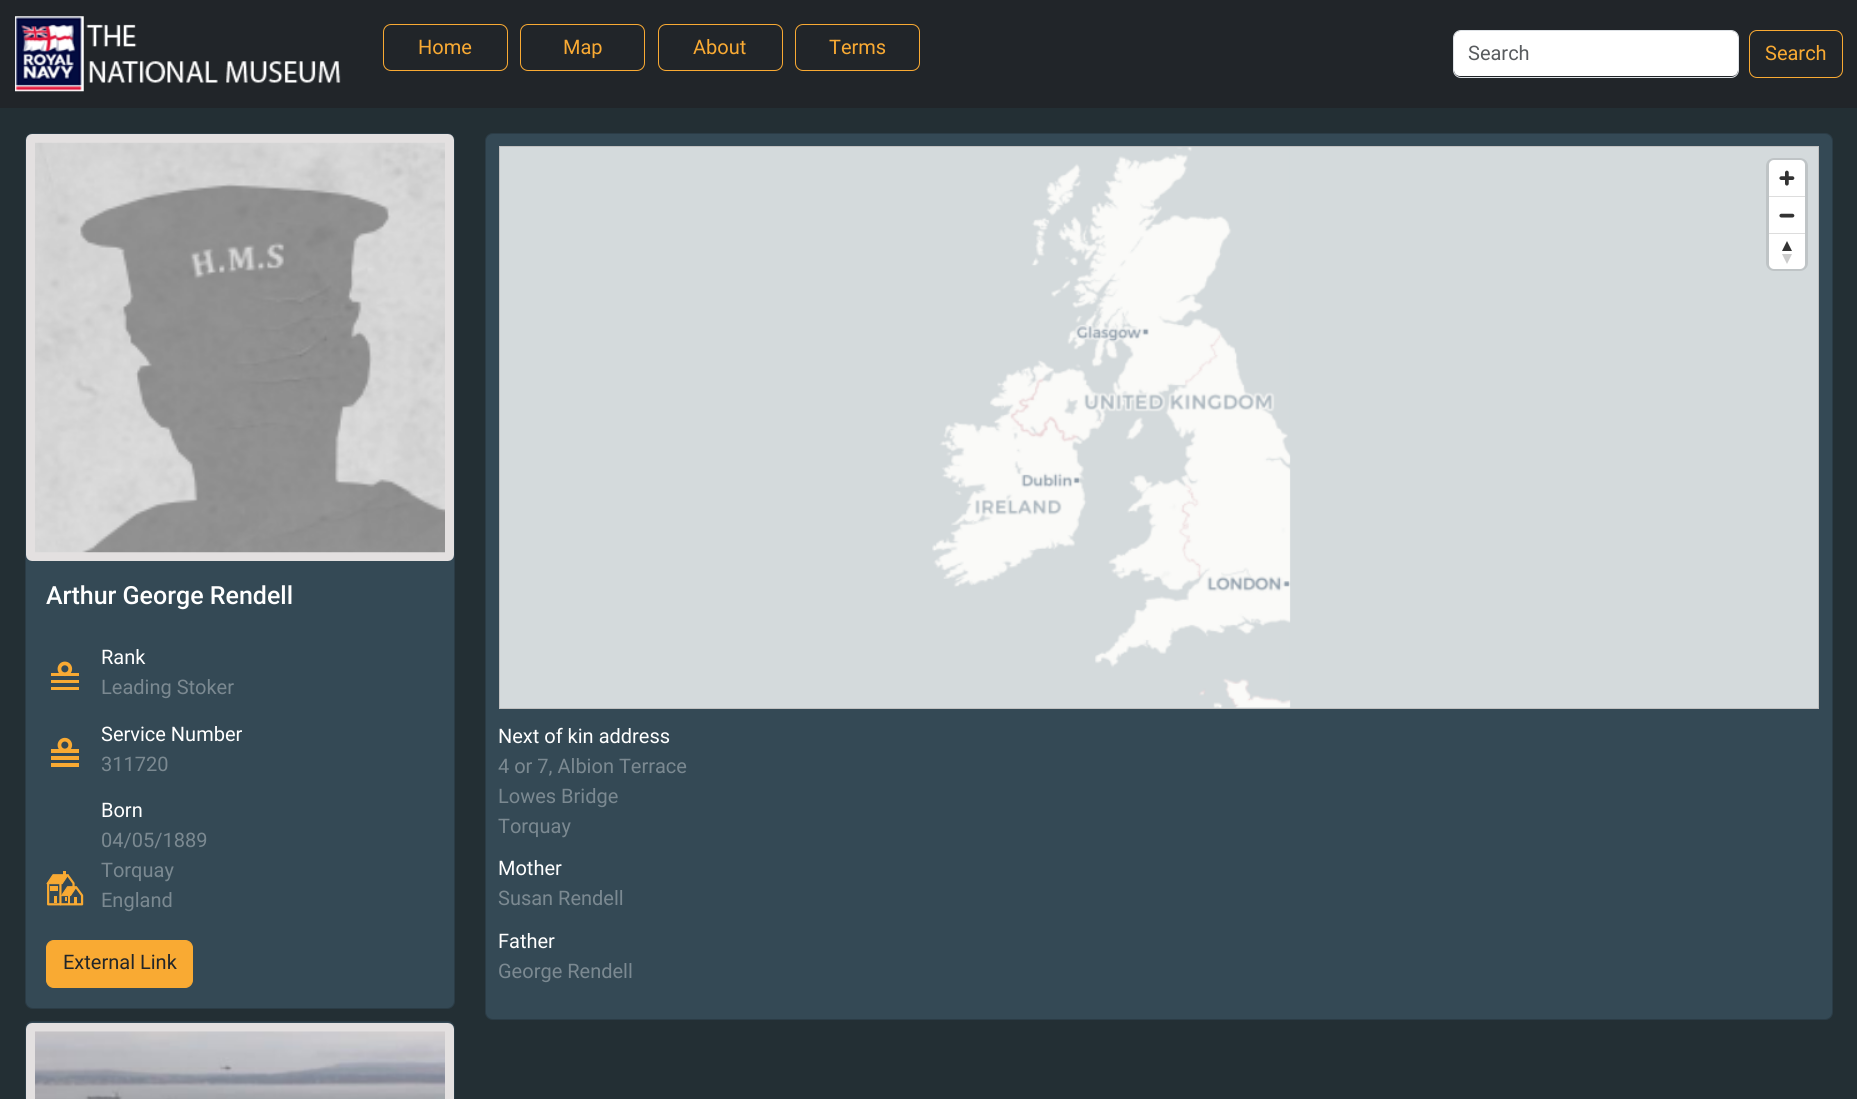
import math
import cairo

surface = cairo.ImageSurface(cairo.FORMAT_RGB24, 1857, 1099)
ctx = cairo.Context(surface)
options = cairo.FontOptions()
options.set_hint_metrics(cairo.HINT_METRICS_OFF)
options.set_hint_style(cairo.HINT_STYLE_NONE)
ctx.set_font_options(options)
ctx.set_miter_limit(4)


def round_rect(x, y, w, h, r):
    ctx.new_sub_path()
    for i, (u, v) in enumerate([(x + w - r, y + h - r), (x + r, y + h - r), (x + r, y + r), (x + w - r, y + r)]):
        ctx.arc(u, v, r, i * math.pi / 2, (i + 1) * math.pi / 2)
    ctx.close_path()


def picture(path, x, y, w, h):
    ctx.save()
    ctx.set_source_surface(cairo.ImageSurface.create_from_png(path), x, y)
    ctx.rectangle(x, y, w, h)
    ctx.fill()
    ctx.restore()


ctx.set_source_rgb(0.137, 0.184, 0.204)
ctx.paint()
ctx.set_source_rgb(0.129, 0.145, 0.161)
ctx.rectangle(0, 0, 1857, 108)
ctx.fill()
picture("img1.png", 15, 16, 326, 76)
round_rect(383.5, 24.5, 124, 46, 7.5)
ctx.set_source_rgb(0.976, 0.667, 0.2)
ctx.set_line_width(1)
ctx.stroke()
ctx.select_font_face("Roboto")
ctx.set_font_size(20)
ctx.move_to(418, 54)
ctx.show_text("Home")
round_rect(520.5, 24.5, 124, 46, 7.5)
ctx.stroke()
ctx.move_to(563, 54)
ctx.show_text("Map")
round_rect(658.5, 24.5, 124, 46, 7.5)
ctx.stroke()
ctx.move_to(693, 54)
ctx.show_text("About")
round_rect(795.5, 24.5, 124, 46, 7.5)
ctx.stroke()
ctx.move_to(829, 54)
ctx.show_text("Terms")
ctx.set_source_rgb(1, 1, 1)
round_rect(1454, 31, 284, 45, 6)
ctx.fill()
round_rect(1453.5, 30.5, 285, 47, 7.5)
ctx.set_source_rgb(0.871, 0.886, 0.902)
ctx.stroke()
ctx.set_source_rgb(0.349, 0.361, 0.373)
ctx.move_to(1468, 60)
ctx.show_text("Search")
round_rect(1749.5, 30.5, 93, 47, 7.5)
ctx.set_source_rgb(0.976, 0.667, 0.2)
ctx.stroke()
ctx.move_to(1765, 60)
ctx.show_text("Search")
ctx.set_source_rgb(0.204, 0.286, 0.333)
round_rect(25, 133, 430, 876, 8)
ctx.fill()
round_rect(25.5, 133.5, 429, 875, 7.5)
ctx.set_source_rgba(0, 0, 0, 0.18)
ctx.stroke()
round_rect(30.5, 138.5, 419, 418, 1.5)
ctx.set_source_rgb(0.89, 0.878, 0.878)
ctx.set_line_width(9)
ctx.stroke()
picture("img2.png", 35, 142, 410, 411)
ctx.select_font_face("Roboto Medium")
ctx.set_font_size(25)
ctx.set_source_rgb(1, 1, 1)
ctx.move_to(46, 604)
ctx.show_text("Arthur George Rendell")
picture("img3.png", 51, 661, 28, 29)
ctx.select_font_face("Roboto")
ctx.set_font_size(20)
ctx.move_to(101, 664)
ctx.show_text("Rank")
ctx.set_source_rgb(0.482, 0.537, 0.569)
ctx.move_to(101, 694)
ctx.show_text("Leading Stoker")
picture("img4.png", 51, 737, 28, 30)
ctx.set_source_rgb(1, 1, 1)
ctx.move_to(101, 741)
ctx.show_text("Service Number")
ctx.set_source_rgb(0.482, 0.537, 0.569)
ctx.move_to(101, 771)
ctx.show_text("311720")
picture("img5.png", 46, 871, 38, 35)
ctx.set_source_rgb(1, 1, 1)
ctx.move_to(101, 817)
ctx.show_text("Born")
ctx.set_source_rgb(0.482, 0.537, 0.569)
ctx.move_to(101, 847)
ctx.show_text("04/05/1889")
ctx.move_to(101, 877)
ctx.show_text("Torquay")
ctx.move_to(101, 907)
ctx.show_text("England")
ctx.set_source_rgb(0.976, 0.667, 0.2)
round_rect(46.5, 940.5, 146, 47, 7.5)
ctx.fill_preserve()
ctx.set_line_width(1)
ctx.stroke()
ctx.set_source_rgb(0.129, 0.145, 0.161)
ctx.move_to(63, 969)
ctx.show_text("External Link")
ctx.set_source_rgb(0.204, 0.286, 0.333)
round_rect(25, 1021, 430, 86, 8)
ctx.fill()
round_rect(25.5, 1021.5, 429, 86, 7.5)
ctx.set_source_rgba(0, 0, 0, 0.18)
ctx.stroke()
round_rect(30.5, 1027.5, 419, 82, 1.5)
ctx.set_source_rgb(0.89, 0.878, 0.878)
ctx.set_line_width(9)
ctx.stroke()
picture("img6.png", 35, 1031, 410, 68)
ctx.set_source_rgb(0.204, 0.286, 0.333)
round_rect(485, 133, 1348, 887, 8)
ctx.fill()
round_rect(485.5, 133.5, 1347, 886, 7.5)
ctx.set_source_rgba(0, 0, 0, 0.18)
ctx.set_line_width(1)
ctx.stroke()
ctx.set_source_rgb(0.831, 0.855, 0.863)
ctx.rectangle(499.5, 146.5, 1319, 562)
ctx.fill_preserve()
ctx.set_source_rgb(0.753, 0.753, 0.753)
ctx.stroke()
picture("img7.png", 932, 147, 359, 561)
round_rect(1767.5, 159.5, 39, 110, 6.5)
ctx.set_source_rgb(0.749, 0.769, 0.776)
ctx.set_line_width(3)
ctx.stroke()
ctx.set_source_rgb(1, 1, 1)
round_rect(1769, 160, 36, 109, 5)
ctx.fill()
picture("img8.png", 1779, 170, 16, 16)
ctx.set_source_rgb(0.867, 0.867, 0.867)
ctx.rectangle(1769, 196, 36, 1)
ctx.fill()
picture("img9.png", 1779, 213, 16, 5)
ctx.rectangle(1769, 233, 36, 1)
ctx.fill()
ctx.set_source_rgb(0.2, 0.2, 0.2)
ctx.new_path()
ctx.move_to(1782, 251)
ctx.line_to(1787, 241)
ctx.line_to(1792, 251)
ctx.close_path()
ctx.fill()
ctx.set_source_rgb(0.8, 0.8, 0.8)
ctx.new_path()
ctx.move_to(1782, 254)
ctx.line_to(1787, 264)
ctx.line_to(1792, 254)
ctx.close_path()
ctx.fill()
ctx.set_source_rgb(1, 1, 1)
ctx.move_to(498, 743)
ctx.show_text("Next of kin address")
ctx.set_source_rgb(0.482, 0.537, 0.569)
ctx.move_to(498, 773)
ctx.show_text("4 or 7, Albion Terrace")
ctx.move_to(498, 803)
ctx.show_text("Lowes Bridge")
ctx.move_to(498, 833)
ctx.show_text("Torquay")
ctx.set_source_rgb(1, 1, 1)
ctx.move_to(498, 875)
ctx.show_text("Mother")
ctx.set_source_rgb(0.482, 0.537, 0.569)
ctx.move_to(498, 905)
ctx.show_text("Susan Rendell")
ctx.set_source_rgb(1, 1, 1)
ctx.move_to(498, 948)
ctx.show_text("Father")
ctx.set_source_rgb(0.482, 0.537, 0.569)
ctx.move_to(498, 978)
ctx.show_text("George Rendell")
surface.write_to_png("page.png")
